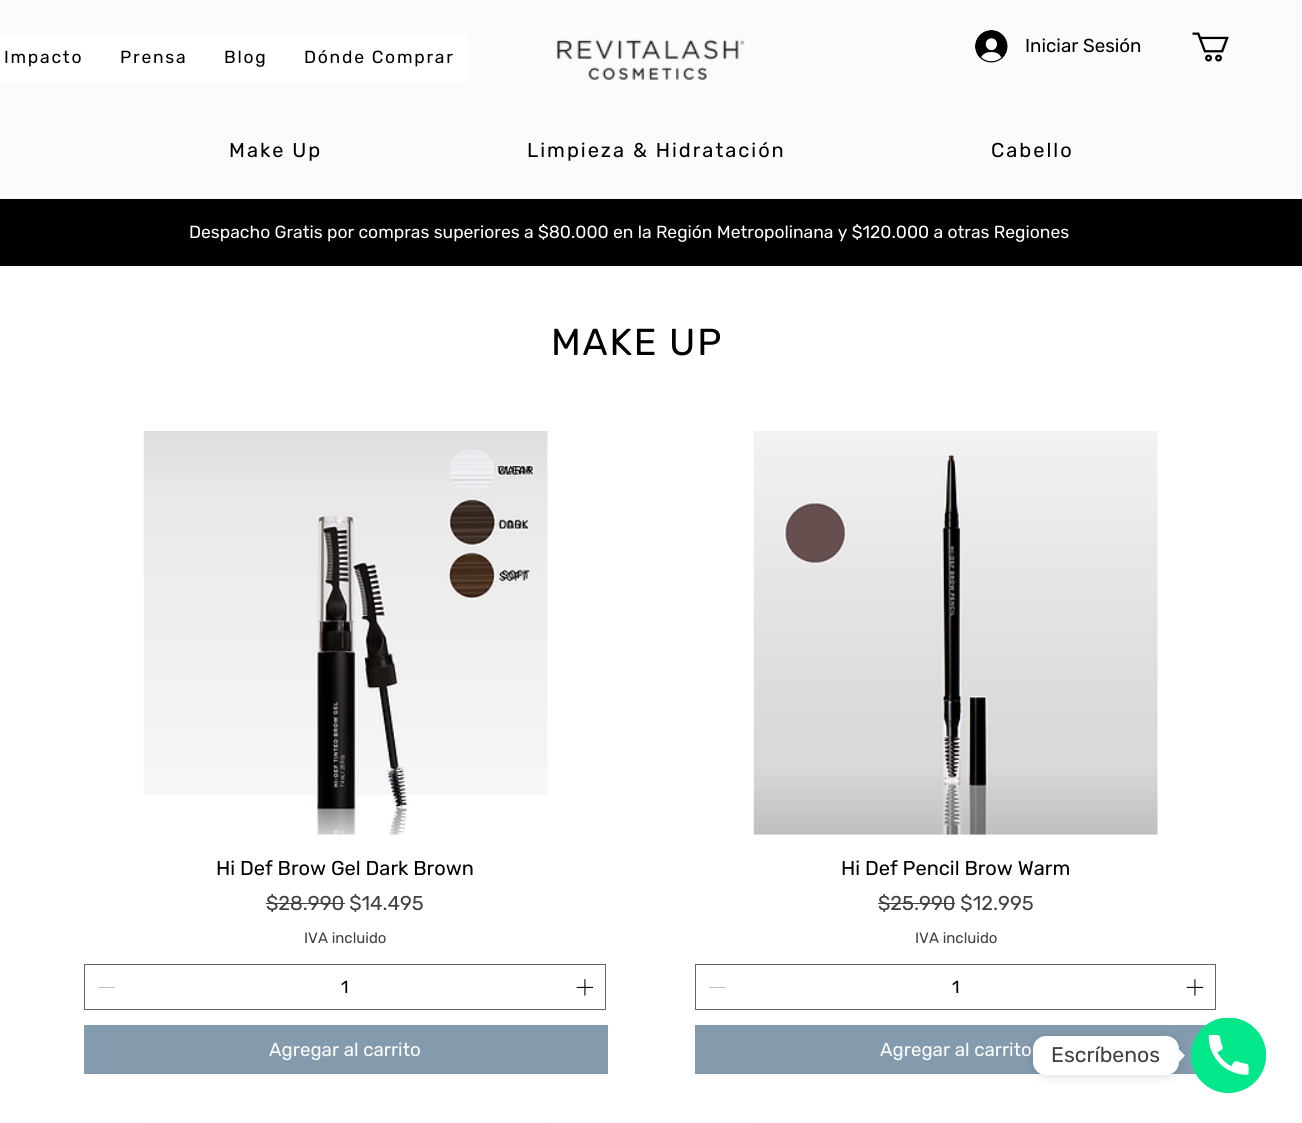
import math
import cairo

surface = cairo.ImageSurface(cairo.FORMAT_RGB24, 1302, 1123)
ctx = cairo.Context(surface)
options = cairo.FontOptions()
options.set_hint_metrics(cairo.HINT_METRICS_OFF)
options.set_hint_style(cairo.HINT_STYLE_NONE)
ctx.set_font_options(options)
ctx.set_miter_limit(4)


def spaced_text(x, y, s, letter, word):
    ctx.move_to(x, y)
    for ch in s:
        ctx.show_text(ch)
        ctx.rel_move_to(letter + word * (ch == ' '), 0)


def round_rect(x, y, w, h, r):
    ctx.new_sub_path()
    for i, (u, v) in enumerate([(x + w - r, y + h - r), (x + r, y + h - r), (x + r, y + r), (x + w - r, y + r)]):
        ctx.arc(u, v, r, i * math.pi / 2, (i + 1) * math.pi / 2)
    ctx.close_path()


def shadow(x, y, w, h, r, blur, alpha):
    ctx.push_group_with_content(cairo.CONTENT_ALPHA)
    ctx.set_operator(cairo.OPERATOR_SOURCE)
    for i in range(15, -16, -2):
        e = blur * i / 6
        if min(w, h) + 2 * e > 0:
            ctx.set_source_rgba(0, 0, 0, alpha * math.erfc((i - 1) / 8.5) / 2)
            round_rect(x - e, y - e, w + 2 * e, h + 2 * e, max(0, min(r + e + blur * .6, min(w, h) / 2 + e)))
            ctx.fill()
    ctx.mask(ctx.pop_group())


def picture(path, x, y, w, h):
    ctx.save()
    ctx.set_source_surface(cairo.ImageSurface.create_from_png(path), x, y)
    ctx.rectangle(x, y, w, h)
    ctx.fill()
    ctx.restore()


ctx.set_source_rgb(1, 1, 1)
ctx.paint()
ctx.set_source_rgb(0.992, 0.984, 0.98)
ctx.rectangle(0, 0, 1302, 199)
ctx.fill()
ctx.set_source_rgb(1, 1, 1)
ctx.rectangle(0, 34, 468, 49)
ctx.fill()
ctx.select_font_face("Rubik")
ctx.set_font_size(17.5)
ctx.set_source_rgb(0, 0, 0)
spaced_text(4, 63, "Impacto", 1.75, 0)
spaced_text(120, 63, "Prensa", 1.75, 0)
spaced_text(224, 63, "Blog", 1.75, 0)
spaced_text(304, 63, "Dónde Comprar", 1.75, 0)
picture("img1.png", 556, 39, 189, 41)
picture("img2.png", 975, 30, 33, 33)
ctx.set_font_size(18.75)
ctx.move_to(1025, 52)
ctx.show_text("Iniciar Sesión")
picture("img3.png", 1192, 32, 37, 30)
ctx.set_font_size(20)
spaced_text(229, 157, "Make Up", 2, 0)
spaced_text(527, 157, "Limpieza & Hidratación", 2, 0)
spaced_text(991, 157, "Cabello", 2, 0)
ctx.rectangle(0, 199, 1302, 67)
ctx.fill()
ctx.set_font_size(17.5)
ctx.set_source_rgb(1, 1, 1)
ctx.move_to(189, 238)
ctx.show_text("Despacho Gratis por compras superiores a $80.000 en la Región Metropolinana y $120.000 a otras Regiones")
ctx.set_font_size(37.5)
ctx.set_source_rgb(0, 0, 0)
spaced_text(551, 355, "MAKE UP", 1.75, 0)
picture("img4.png", 143, 431, 405, 404)
ctx.set_font_size(20)
ctx.move_to(216, 875)
ctx.show_text("Hi Def Brow Gel Dark Brown")
ctx.set_source_rgb(0.251, 0.251, 0.251)
ctx.move_to(266, 910)
ctx.show_text("$28.990 $14.495")
ctx.rectangle(266, 903, 79, 1)
ctx.fill()
ctx.set_font_size(15)
ctx.move_to(304, 943)
ctx.show_text("IVA incluido")
ctx.rectangle(84.5, 964.5, 521, 45)
ctx.set_source_rgb(0.4, 0.4, 0.4)
ctx.set_line_width(1)
ctx.stroke()
ctx.set_source_rgb(0.753, 0.753, 0.753)
ctx.rectangle(98, 987, 17, 1)
ctx.fill()
ctx.set_font_size(17.5)
ctx.set_source_rgb(0, 0, 0)
ctx.move_to(341, 993)
ctx.show_text("1")
picture("img5.png", 576, 979, 18, 17)
ctx.set_source_rgb(0.514, 0.608, 0.678)
ctx.rectangle(84, 1025, 524, 49)
ctx.fill()
ctx.set_font_size(18.75)
ctx.set_source_rgb(1, 1, 1)
ctx.move_to(269, 1056)
ctx.show_text("Agregar al carrito")
picture("img6.png", 753, 431, 405, 404)
ctx.set_font_size(20)
ctx.set_source_rgb(0, 0, 0)
ctx.move_to(841, 875)
ctx.show_text("Hi Def Pencil Brow Warm")
ctx.set_source_rgb(0.251, 0.251, 0.251)
ctx.move_to(878, 910)
ctx.show_text("$25.990 $12.995")
ctx.rectangle(878, 903, 77, 1)
ctx.fill()
ctx.set_font_size(15)
ctx.move_to(915, 943)
ctx.show_text("IVA incluido")
ctx.rectangle(695.5, 964.5, 520, 45)
ctx.set_source_rgb(0.4, 0.4, 0.4)
ctx.stroke()
ctx.set_source_rgb(0.753, 0.753, 0.753)
ctx.rectangle(709, 987, 17, 1)
ctx.fill()
ctx.set_font_size(17.5)
ctx.set_source_rgb(0, 0, 0)
ctx.move_to(952, 993)
ctx.show_text("1")
picture("img5.png", 1186, 979, 18, 17)
ctx.set_source_rgb(0.514, 0.608, 0.678)
ctx.rectangle(695, 1025, 511, 49)
ctx.fill()
ctx.set_font_size(18.75)
ctx.set_source_rgb(1, 1, 1)
ctx.move_to(880, 1056)
ctx.show_text("Agregar al carrito")
ctx.set_source_rgb(0.973, 0.973, 0.973)
ctx.rectangle(144, 1122, 403, 1)
ctx.fill()
ctx.rectangle(754, 1122, 403, 1)
ctx.fill()
ctx.set_source_rgb(0.012, 0.906, 0.545)
ctx.arc(1228.5, 1055.5, 37.5, 0, 2 * math.pi)
ctx.fill()
picture("img7.png", 1191, 1018, 75, 75)
ctx.set_source_rgb(0, 0, 0)
shadow(1033, 1038, 146, 38, 13, 5, 0.15)
ctx.set_source_rgb(1, 1, 1)
round_rect(1033, 1036, 146, 39, 13)
ctx.fill()
ctx.select_font_face("Rubik Light")
ctx.set_font_size(21.25)
ctx.set_source_rgb(0.251, 0.251, 0.251)
ctx.move_to(1051, 1062)
ctx.show_text("Escríbenos")
ctx.set_source_rgb(1, 1, 1)
ctx.new_path()
ctx.move_to(1179, 1062)
ctx.line_to(1179, 1049.5)
ctx.line_to(1185, 1055.5)
ctx.close_path()
ctx.fill()
surface.write_to_png("page.png")
